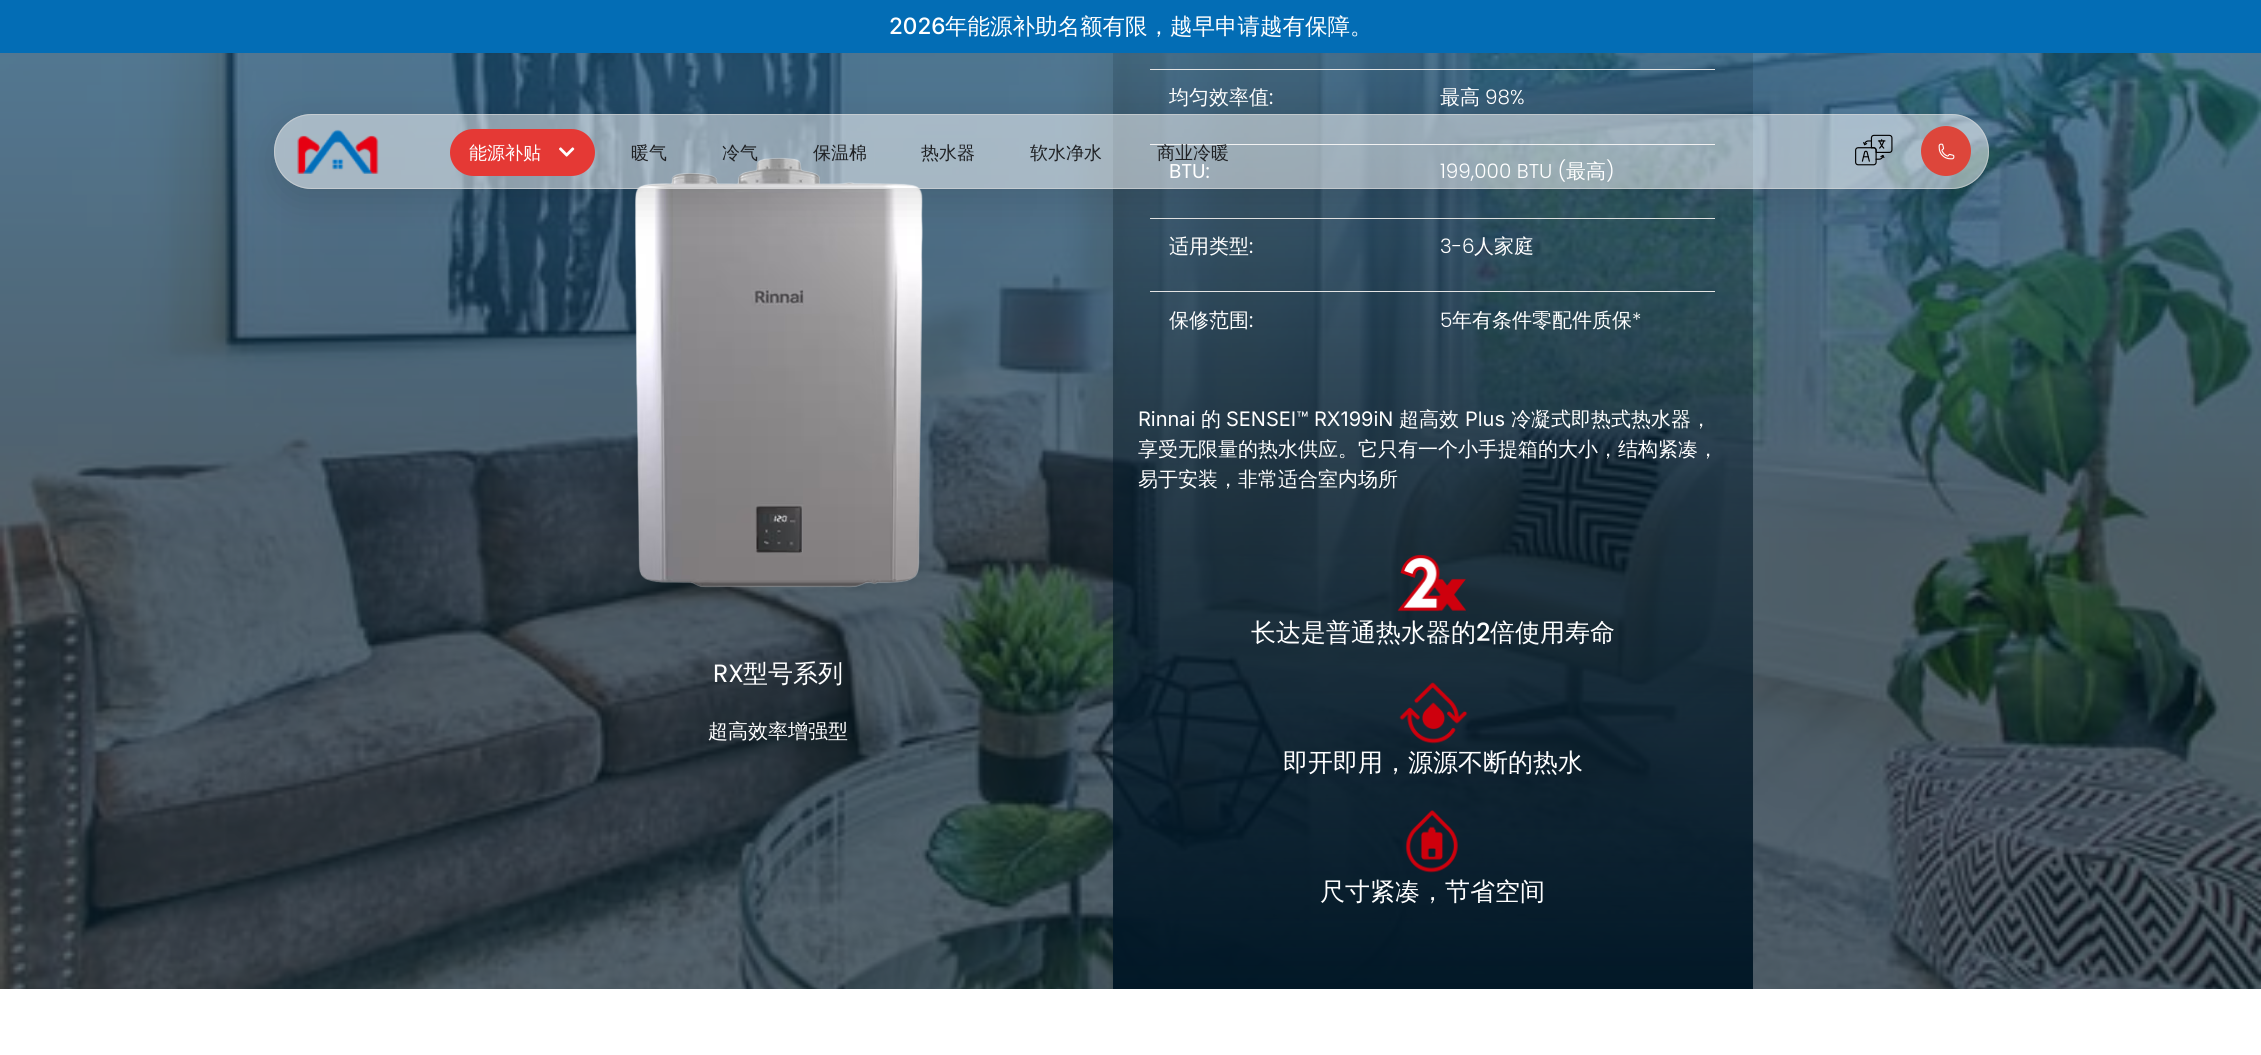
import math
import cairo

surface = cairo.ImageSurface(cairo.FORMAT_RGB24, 2261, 1055)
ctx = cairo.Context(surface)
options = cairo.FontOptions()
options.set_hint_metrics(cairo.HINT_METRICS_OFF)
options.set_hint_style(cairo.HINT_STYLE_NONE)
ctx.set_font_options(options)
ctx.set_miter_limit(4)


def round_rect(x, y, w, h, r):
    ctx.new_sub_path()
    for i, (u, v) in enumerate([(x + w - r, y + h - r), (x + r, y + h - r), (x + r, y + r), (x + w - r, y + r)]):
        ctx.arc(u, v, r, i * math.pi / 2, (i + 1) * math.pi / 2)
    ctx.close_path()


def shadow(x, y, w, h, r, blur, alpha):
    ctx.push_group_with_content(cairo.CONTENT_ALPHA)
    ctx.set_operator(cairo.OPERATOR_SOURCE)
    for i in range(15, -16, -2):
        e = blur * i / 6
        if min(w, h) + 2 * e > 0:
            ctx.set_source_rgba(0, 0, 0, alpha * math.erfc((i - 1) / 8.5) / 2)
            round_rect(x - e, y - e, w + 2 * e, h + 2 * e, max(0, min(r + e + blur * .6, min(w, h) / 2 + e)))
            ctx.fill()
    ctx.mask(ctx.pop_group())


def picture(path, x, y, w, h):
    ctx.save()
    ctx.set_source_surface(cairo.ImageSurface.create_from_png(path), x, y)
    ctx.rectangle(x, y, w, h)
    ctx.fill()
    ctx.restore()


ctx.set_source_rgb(1, 1, 1)
ctx.paint()
ctx.set_source_rgb(0.012, 0.427, 0.71)
ctx.rectangle(0, 0, 2261, 53)
ctx.fill()
ctx.select_font_face("Inter Medium")
ctx.set_font_size(22.5)
ctx.set_source_rgb(1, 1, 1)
ctx.move_to(889, 34)
ctx.show_text("2026")
ctx.select_font_face("WenQuanYi Zen Hei Medium")
ctx.move_to(945, 34)
ctx.show_text("年能源补助名额有限，越早申请越有保障。")
picture("img5.png", 0, 53, 2261, 936)
picture("img6.png", 635, 157, 288, 431)
ctx.set_source_rgb(0.894, 0.894, 0.894)
ctx.rectangle(1150, 69, 565, 1)
ctx.fill()
ctx.rectangle(1150, 144, 565, 1)
ctx.fill()
ctx.rectangle(1150, 218, 565, 1)
ctx.fill()
ctx.save()
ctx.set_fill_rule(cairo.FILL_RULE_EVEN_ODD)
ctx.new_path()
ctx.move_to(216, 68)
ctx.line_to(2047, 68)
ctx.line_to(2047, 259)
ctx.line_to(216, 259)
ctx.close_path()
ctx.move_to(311.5, 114)
ctx.line_to(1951.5, 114)
ctx.curve_to(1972, 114, 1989, 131, 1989, 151.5)
ctx.curve_to(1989, 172, 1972, 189, 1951.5, 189)
ctx.line_to(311.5, 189)
ctx.curve_to(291, 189, 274, 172, 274, 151.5)
ctx.curve_to(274, 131, 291, 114, 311.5, 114)
ctx.close_path()
ctx.clip()
ctx.set_source_rgb(0, 0, 0)
shadow(274, 126, 1715, 75, 37.5, 19, 0.12)
ctx.restore()
ctx.select_font_face("Poppins")
ctx.set_font_size(20)
ctx.set_source_rgb(1, 1, 1)
ctx.move_to(1169, 178)
ctx.show_text("BTU:")
ctx.select_font_face("Poppins Light")
ctx.move_to(1440, 178)
ctx.show_text("199,000 BTU (")
ctx.select_font_face("WenQuanYi Zen Hei Medium")
ctx.move_to(1566, 178)
ctx.show_text("最高")
ctx.select_font_face("Poppins Light")
ctx.move_to(1606, 178)
ctx.show_text(")")
ctx.set_source_rgba(1, 1, 1, 0.5)
round_rect(274, 114, 1715, 75, 37.5)
ctx.fill()
round_rect(274.5, 114.5, 1714, 74, 37)
ctx.set_source_rgba(0.851, 0.851, 0.851, 0.6)
ctx.set_line_width(1)
ctx.stroke()
picture("img1.png", 297, 129, 82, 45)
ctx.set_source_rgb(0.898, 0.224, 0.208)
round_rect(450, 129, 145, 47, 23.5)
ctx.fill()
ctx.select_font_face("WenQuanYi Zen Hei Medium")
ctx.set_font_size(18)
ctx.set_source_rgb(1, 1, 1)
ctx.move_to(469, 159)
ctx.show_text("能源补贴")
picture("img2.png", 559, 147, 16, 10)
ctx.set_source_rgb(0.122, 0.129, 0.141)
ctx.move_to(631, 159)
ctx.show_text("暖气")
ctx.move_to(722, 159)
ctx.show_text("冷气")
ctx.move_to(813, 159)
ctx.show_text("保温棉")
ctx.move_to(921, 159)
ctx.show_text("热水器")
ctx.move_to(1030, 159)
ctx.show_text("软水净水")
ctx.move_to(1157, 159)
ctx.show_text("商业冷暖")
picture("img3.png", 1855, 134, 38, 32)
ctx.set_source_rgb(0.867, 0.275, 0.231)
ctx.arc(1946, 151, 25, 0, 2 * math.pi)
ctx.fill()
picture("img4.png", 1938, 143, 17, 17)
ctx.select_font_face("Poppins")
ctx.set_font_size(25)
ctx.set_source_rgb(1, 1, 1)
ctx.move_to(713, 682)
ctx.show_text("RX")
ctx.select_font_face("WenQuanYi Zen Hei Medium")
ctx.move_to(743, 682)
ctx.show_text("型号系列")
ctx.set_font_size(20)
ctx.move_to(708, 738)
ctx.show_text("超高效率增强型")
ctx.move_to(1169, 104)
ctx.show_text("均匀效率值")
ctx.select_font_face("Poppins")
ctx.move_to(1269, 104)
ctx.show_text(":")
ctx.select_font_face("WenQuanYi Zen Hei Medium")
ctx.move_to(1440, 104)
ctx.show_text("最高")
ctx.select_font_face("Poppins Light")
ctx.move_to(1485, 104)
ctx.show_text("98%")
ctx.select_font_face("WenQuanYi Zen Hei Medium")
ctx.move_to(1169, 253)
ctx.show_text("适用类型")
ctx.select_font_face("Poppins")
ctx.move_to(1249, 253)
ctx.show_text(":")
ctx.select_font_face("Poppins Light")
ctx.move_to(1440, 253)
ctx.show_text("3-6")
ctx.select_font_face("WenQuanYi Zen Hei Medium")
ctx.move_to(1474, 253)
ctx.show_text("人家庭")
ctx.set_source_rgb(0.894, 0.894, 0.894)
ctx.rectangle(1150, 291, 565, 1)
ctx.fill()
ctx.set_source_rgb(1, 1, 1)
ctx.move_to(1169, 327)
ctx.show_text("保修范围")
ctx.select_font_face("Poppins")
ctx.move_to(1249, 327)
ctx.show_text(":")
ctx.select_font_face("Poppins Light")
ctx.move_to(1440, 327)
ctx.show_text("5")
ctx.select_font_face("WenQuanYi Zen Hei Medium")
ctx.move_to(1452, 327)
ctx.show_text("年有条件零配件质保")
ctx.select_font_face("Poppins Light")
ctx.move_to(1632, 327)
ctx.show_text("*")
ctx.select_font_face("Inter")
ctx.move_to(1138, 426)
ctx.show_text("Rinnai")
ctx.select_font_face("WenQuanYi Zen Hei Medium")
ctx.move_to(1201, 426)
ctx.show_text("的")
ctx.select_font_face("Inter")
ctx.move_to(1226, 426)
ctx.show_text("SENSEI™ RX199iN")
ctx.select_font_face("WenQuanYi Zen Hei Medium")
ctx.move_to(1399, 426)
ctx.show_text("超高效")
ctx.select_font_face("Inter")
ctx.move_to(1465, 426)
ctx.show_text("Plus")
ctx.select_font_face("WenQuanYi Zen Hei Medium")
ctx.move_to(1511, 426)
ctx.show_text("冷凝式即热式热水器，")
ctx.move_to(1138, 456)
ctx.show_text("享受无限量的热水供应。它只有一个小手提箱的大小，结构紧凑，")
ctx.move_to(1138, 486)
ctx.show_text("易于安装，非常适合室内场所")
picture("img7.png", 1397, 554, 69, 58)
ctx.set_font_size(25)
ctx.move_to(1251, 641)
ctx.show_text("长达是普通热水器的")
ctx.select_font_face("Poppins Medium")
ctx.move_to(1476, 641)
ctx.show_text("2")
ctx.select_font_face("WenQuanYi Zen Hei Medium")
ctx.move_to(1490, 641)
ctx.show_text("倍使用寿命")
picture("img8.png", 1399, 682, 69, 62)
ctx.move_to(1283, 771)
ctx.show_text("即开即用，源源不断的热水")
picture("img9.png", 1405, 810, 53, 63)
ctx.move_to(1320, 900)
ctx.show_text("尺寸紧凑，节省空间")
surface.write_to_png("page.png")
